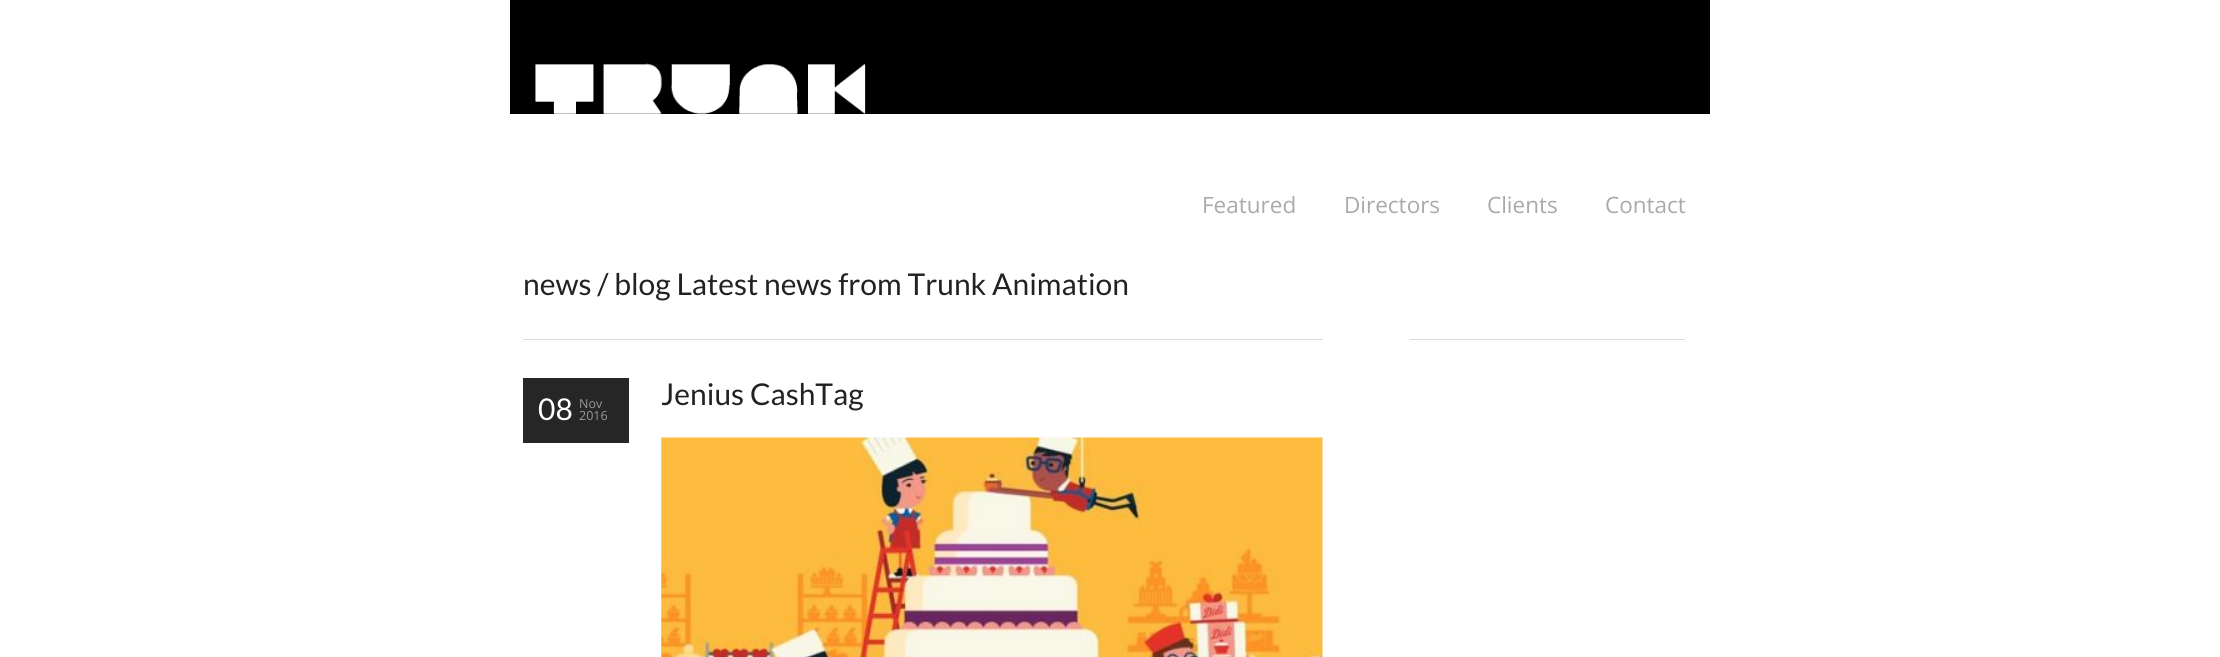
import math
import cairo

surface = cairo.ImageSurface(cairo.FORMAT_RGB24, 2220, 657)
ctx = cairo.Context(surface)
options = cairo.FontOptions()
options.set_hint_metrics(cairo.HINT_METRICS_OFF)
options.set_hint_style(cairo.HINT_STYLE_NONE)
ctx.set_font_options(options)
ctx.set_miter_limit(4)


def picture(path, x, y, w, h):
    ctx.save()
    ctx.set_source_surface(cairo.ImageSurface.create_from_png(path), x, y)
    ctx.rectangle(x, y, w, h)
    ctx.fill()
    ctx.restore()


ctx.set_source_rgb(1, 1, 1)
ctx.paint()
ctx.set_source_rgb(0, 0, 0)
ctx.rectangle(510, 0, 1200, 114)
ctx.fill()
picture("img1.png", 535, 63, 331, 51)
ctx.select_font_face("Open Sans")
ctx.set_font_size(22.5)
ctx.set_source_rgb(0.667, 0.667, 0.667)
ctx.move_to(1202, 213)
ctx.show_text("Featured")
ctx.move_to(1344, 213)
ctx.show_text("Directors")
ctx.move_to(1487, 213)
ctx.show_text("Clients")
ctx.move_to(1605, 213)
ctx.show_text("Contact")
ctx.select_font_face("Lato")
ctx.set_font_size(30)
ctx.set_source_rgb(0.133, 0.133, 0.133)
ctx.move_to(523, 295)
ctx.show_text("news / blog Latest news from Trunk Animation")
ctx.set_source_rgb(0.863, 0.863, 0.863)
ctx.rectangle(1410, 339, 275, 1)
ctx.fill()
ctx.rectangle(523, 339, 800, 1)
ctx.fill()
ctx.set_source_rgb(0.149, 0.149, 0.149)
ctx.rectangle(523, 378, 106, 65)
ctx.fill()
ctx.set_source_rgb(1, 1, 1)
ctx.move_to(538, 420)
ctx.show_text("08")
ctx.select_font_face("Open Sans")
ctx.set_font_size(12.5)
ctx.set_source_rgb(0.6, 0.6, 0.6)
ctx.move_to(579, 408)
ctx.show_text("Nov")
ctx.move_to(579, 420)
ctx.show_text("2016")
ctx.select_font_face("Lato")
ctx.set_font_size(30)
ctx.set_source_rgb(0.133, 0.133, 0.133)
ctx.move_to(661, 405)
ctx.show_text("Jenius CashTag")
picture("img2.png", 661, 437, 662, 220)
surface.write_to_png("page.png")
